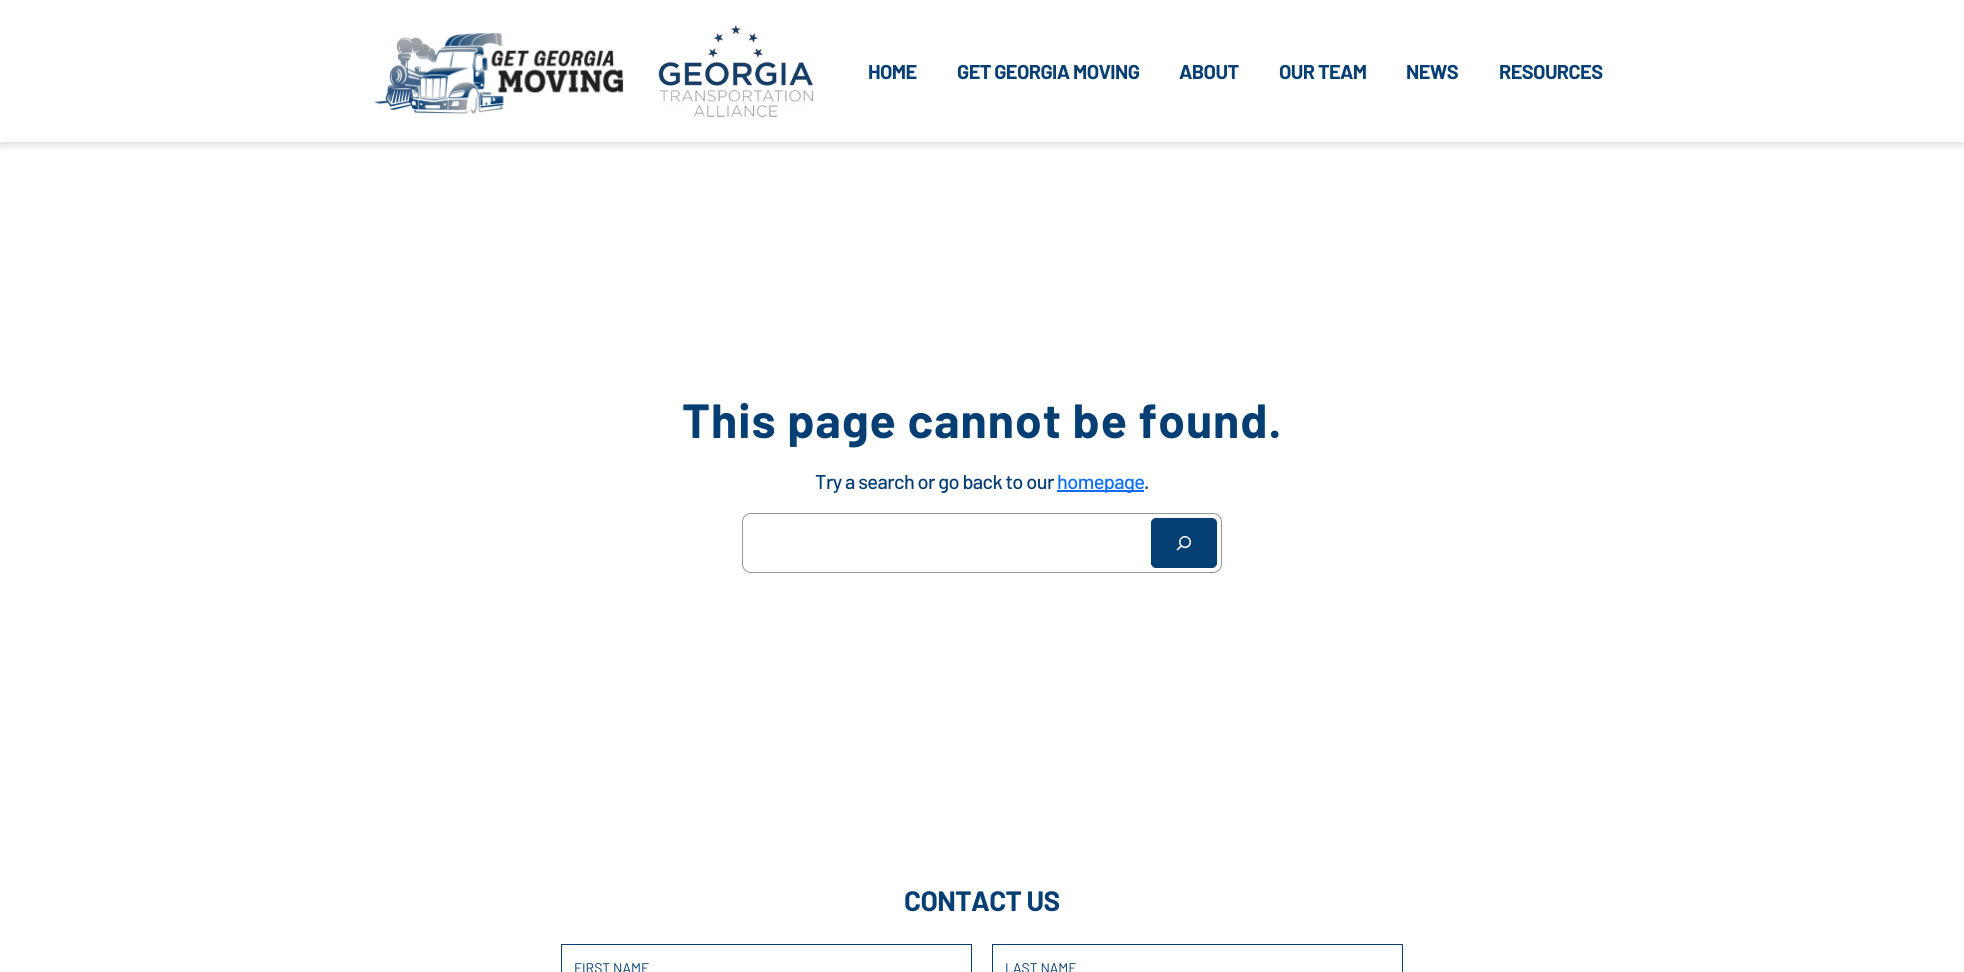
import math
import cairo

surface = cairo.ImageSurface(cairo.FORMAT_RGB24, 1964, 972)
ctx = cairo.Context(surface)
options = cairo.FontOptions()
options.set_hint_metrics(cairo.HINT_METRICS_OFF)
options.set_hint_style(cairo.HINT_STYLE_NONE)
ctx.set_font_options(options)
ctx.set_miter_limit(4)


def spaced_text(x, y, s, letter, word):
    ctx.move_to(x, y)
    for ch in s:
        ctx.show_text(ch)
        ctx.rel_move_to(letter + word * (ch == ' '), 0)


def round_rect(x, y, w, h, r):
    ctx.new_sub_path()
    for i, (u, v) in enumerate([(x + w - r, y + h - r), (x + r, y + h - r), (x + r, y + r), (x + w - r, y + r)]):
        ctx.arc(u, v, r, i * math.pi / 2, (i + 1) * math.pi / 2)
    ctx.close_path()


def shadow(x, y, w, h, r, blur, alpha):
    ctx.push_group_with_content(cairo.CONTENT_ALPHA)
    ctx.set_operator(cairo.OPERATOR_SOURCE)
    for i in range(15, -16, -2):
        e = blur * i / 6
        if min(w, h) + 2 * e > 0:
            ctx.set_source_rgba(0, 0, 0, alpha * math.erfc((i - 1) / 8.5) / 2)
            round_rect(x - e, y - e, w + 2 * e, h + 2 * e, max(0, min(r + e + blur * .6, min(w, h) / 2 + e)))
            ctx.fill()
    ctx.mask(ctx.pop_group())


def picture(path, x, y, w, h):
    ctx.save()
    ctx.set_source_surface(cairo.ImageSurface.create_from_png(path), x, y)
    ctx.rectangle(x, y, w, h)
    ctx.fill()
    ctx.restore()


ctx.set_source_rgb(1, 1, 1)
ctx.paint()
ctx.save()
ctx.rectangle(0, 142, 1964, 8)
ctx.clip()
ctx.set_source_rgb(0, 0, 0)
shadow(0, 3, 1964, 142, 0, 4.5, 0.15)
ctx.restore()
picture("img1.png", 374, 32, 250, 82)
picture("img2.png", 658, 25, 156, 92)
ctx.select_font_face("Barlow", cairo.FONT_SLANT_NORMAL, cairo.FONT_WEIGHT_BOLD)
ctx.set_font_size(20)
ctx.set_source_rgb(0.02, 0.243, 0.451)
spaced_text(868, 79, "HOME", -0.6, 0)
spaced_text(957, 79, "GET GEORGIA MOVING", -0.6, 0)
spaced_text(1179, 79, "ABOUT", -0.6, 0)
spaced_text(1279, 79, "OUR TEAM", -0.6, 0)
spaced_text(1406, 79, "NEWS", -0.6, 0)
spaced_text(1499, 79, "RESOURCES", -0.6, 0)
ctx.set_font_size(48)
spaced_text(682, 438, "This page cannot be found.", 1, 0)
ctx.select_font_face("Barlow Medium")
ctx.set_font_size(20)
spaced_text(815, 489, "Try a search or go back to our", -0.6, 0)
ctx.set_source_rgb(0.051, 0.431, 0.996)
ctx.rectangle(1057, 490, 87, 2)
ctx.fill()
spaced_text(1057, 489, "homepage", -0.6, 0)
ctx.set_source_rgb(0.02, 0.243, 0.451)
spaced_text(1144, 489, ".", -0.6, 0)
round_rect(742.5, 513.5, 479, 59, 8.5)
ctx.set_source_rgb(0.58, 0.58, 0.58)
ctx.set_line_width(1)
ctx.stroke()
ctx.set_source_rgb(0.02, 0.243, 0.451)
round_rect(1151.5, 518.5, 65, 49, 4.5)
ctx.fill_preserve()
ctx.stroke()
picture("img3.png", 1176, 536, 16, 15)
ctx.select_font_face("Barlow", cairo.FONT_SLANT_NORMAL, cairo.FONT_WEIGHT_BOLD)
ctx.set_font_size(28)
spaced_text(904, 911, "CONTACT US", -0.6, 0)
ctx.rectangle(561.5, 944.5, 410, 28)
ctx.stroke()
ctx.select_font_face("Barlow")
ctx.set_font_size(14)
ctx.move_to(574, 973)
ctx.show_text("FIRST NAME")
ctx.rectangle(992.5, 944.5, 410, 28)
ctx.stroke()
ctx.move_to(1005, 973)
ctx.show_text("LAST NAME")
surface.write_to_png("page.png")
